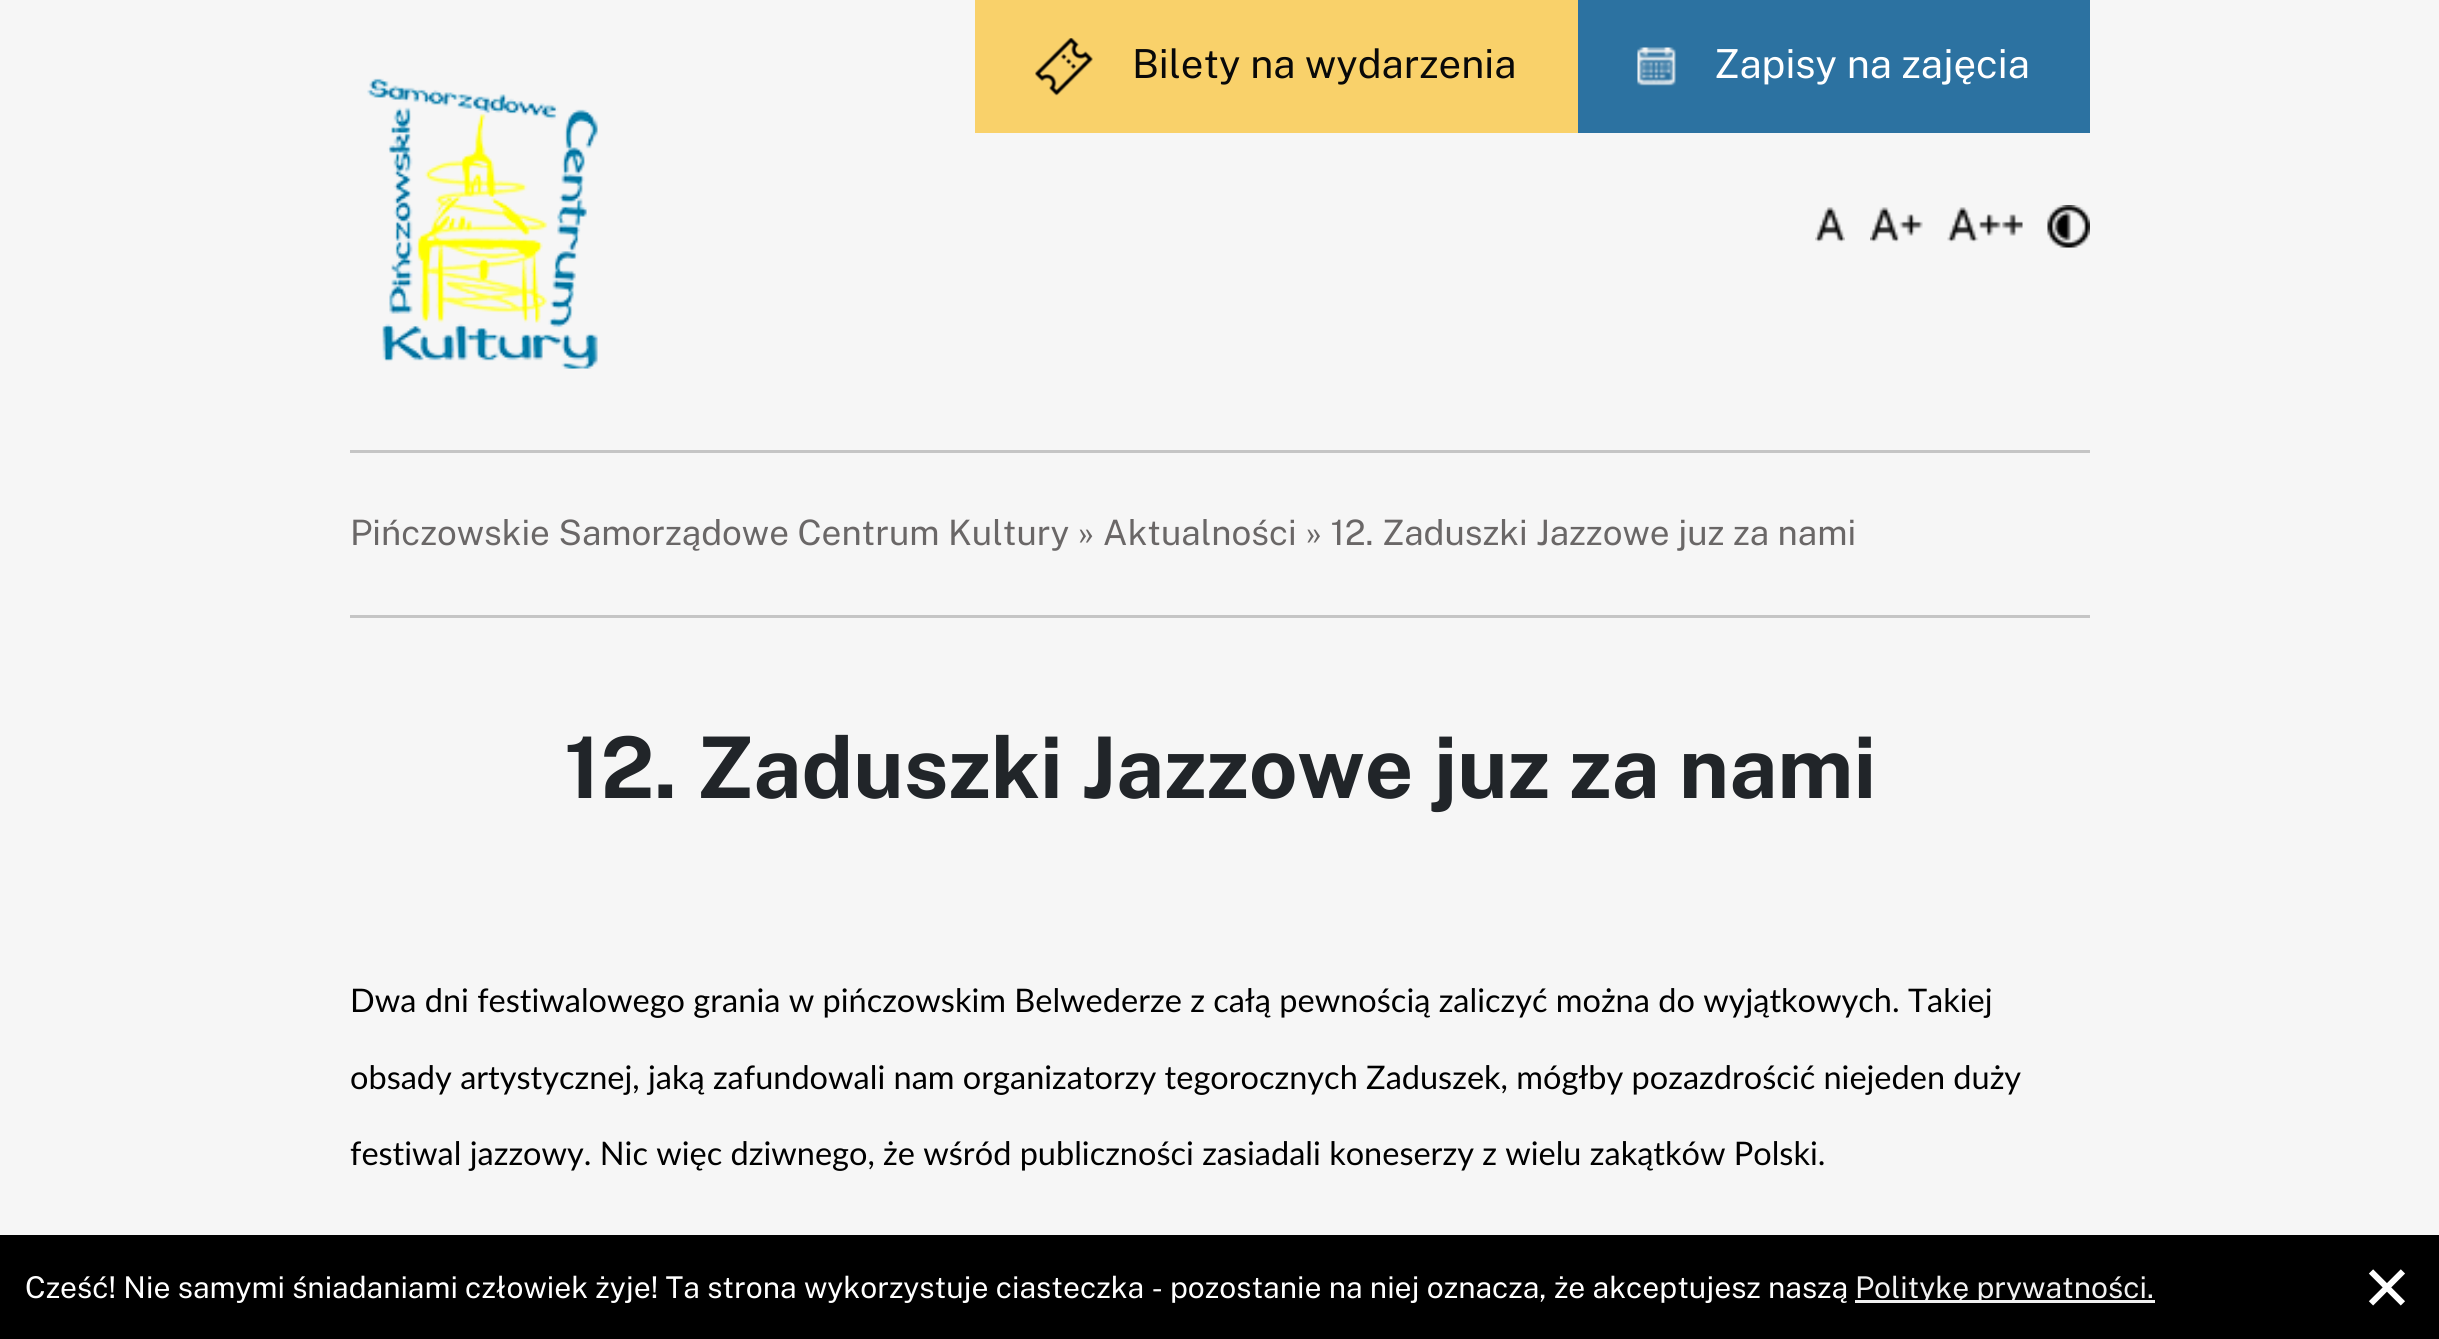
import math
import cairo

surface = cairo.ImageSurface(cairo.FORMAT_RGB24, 2439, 1339)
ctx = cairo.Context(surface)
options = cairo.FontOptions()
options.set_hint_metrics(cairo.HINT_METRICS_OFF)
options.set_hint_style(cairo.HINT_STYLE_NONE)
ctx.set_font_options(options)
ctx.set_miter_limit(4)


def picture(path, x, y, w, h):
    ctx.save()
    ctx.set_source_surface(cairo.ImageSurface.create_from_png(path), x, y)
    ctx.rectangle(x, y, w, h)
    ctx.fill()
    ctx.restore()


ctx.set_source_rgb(0.961, 0.961, 0.961)
ctx.paint()
ctx.set_source_rgb(0.976, 0.82, 0.416)
ctx.rectangle(975, 0, 603, 133)
ctx.fill()
picture("img1.png", 1035, 38, 58, 58)
ctx.select_font_face("Public Sans")
ctx.set_font_size(40)
ctx.set_source_rgb(0.039, 0.039, 0.039)
ctx.move_to(1132, 78)
ctx.show_text("Bilety na wydarzenia")
ctx.set_source_rgb(0.173, 0.447, 0.631)
ctx.rectangle(1578, 0, 512, 133)
ctx.fill()
picture("img2.png", 1637, 47, 39, 39)
ctx.set_source_rgb(1, 1, 1)
ctx.move_to(1714, 78)
ctx.show_text("Zapisy na zajęcia")
picture("img3.png", 367, 78, 231, 291)
picture("img4.png", 1815, 207, 30, 36)
picture("img5.png", 1870, 207, 53, 36)
picture("img6.png", 1947, 207, 76, 36)
picture("img7.png", 2047, 205, 43, 43)
ctx.set_source_rgb(0.773, 0.773, 0.773)
ctx.rectangle(350, 450, 1740, 3)
ctx.fill()
ctx.rectangle(350, 615, 1740, 3)
ctx.fill()
ctx.set_font_size(35)
ctx.set_source_rgb(0.416, 0.404, 0.404)
ctx.move_to(350, 545)
ctx.show_text("Pińczowskie Samorządowe Centrum Kultury » Aktualności » 12. Zaduszki Jazzowe juz za nami")
ctx.select_font_face("Public Sans", cairo.FONT_SLANT_NORMAL, cairo.FONT_WEIGHT_BOLD)
ctx.set_font_size(85)
ctx.set_source_rgb(0.129, 0.145, 0.161)
ctx.move_to(564, 798)
ctx.show_text("12. Zaduszki Jazzowe juz za nami")
ctx.select_font_face("Lato")
ctx.set_font_size(32.5)
ctx.set_source_rgb(0, 0, 0)
ctx.move_to(350, 1012)
ctx.show_text("Dwa dni festiwalowego grania w pińczowskim Belwederze z całą pewnością zaliczyć można do wyjątkowych. Takiej")
ctx.move_to(350, 1089)
ctx.show_text("obsady artystycznej, jaką zafundowali nam organizatorzy tegorocznych Zaduszek, mógłby pozazdrościć niejeden duży")
ctx.move_to(350, 1165)
ctx.show_text("festiwal jazzowy. Nic więc dziwnego, że wśród publiczności zasiadali koneserzy z wielu zakątków Polski.")
ctx.rectangle(0, 1235, 2439, 104)
ctx.fill()
ctx.select_font_face("Public Sans")
ctx.set_font_size(30)
ctx.set_source_rgb(1, 1, 1)
ctx.move_to(25, 1298)
ctx.show_text("Cześć! Nie samymi śniadaniami człowiek żyje! Ta strona wykorzystuje ciasteczka - pozostanie na niej oznacza, że akceptujesz naszą")
ctx.set_source_rgb(0.945, 0.945, 0.945)
ctx.rectangle(1855, 1300, 300, 3)
ctx.fill()
ctx.move_to(1855, 1298)
ctx.show_text("Politykę prywatności.")
ctx.select_font_face("DejaVu Sans")
ctx.set_font_size(62)
ctx.set_source_rgb(1, 1, 1)
ctx.move_to(2361, 1310)
ctx.show_text("✕")
surface.write_to_png("page.png")
